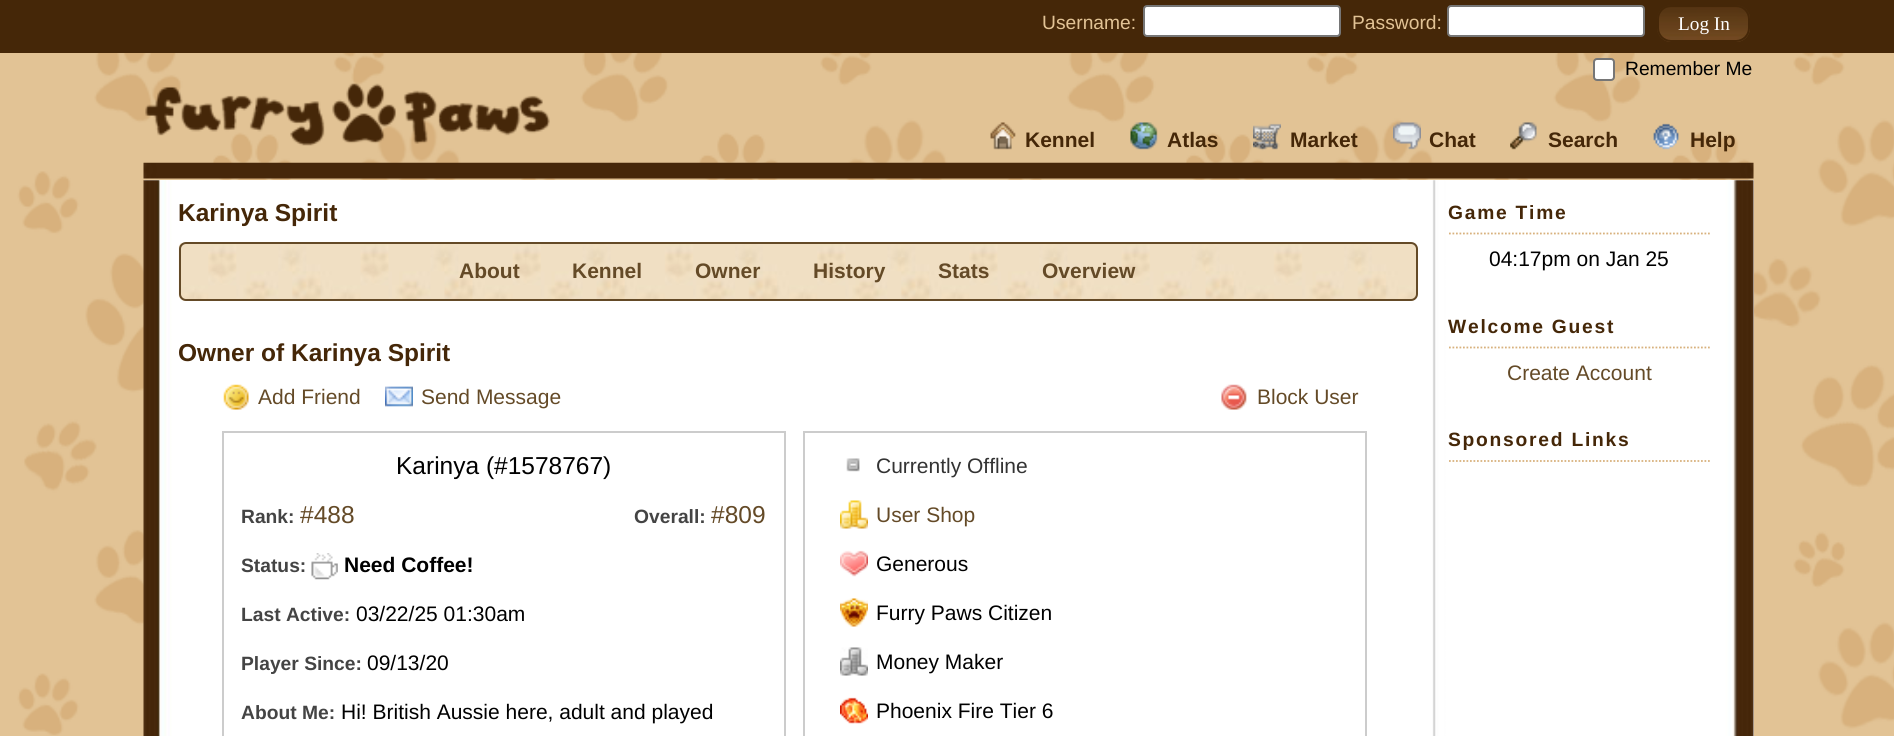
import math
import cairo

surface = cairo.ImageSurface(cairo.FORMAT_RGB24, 1894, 736)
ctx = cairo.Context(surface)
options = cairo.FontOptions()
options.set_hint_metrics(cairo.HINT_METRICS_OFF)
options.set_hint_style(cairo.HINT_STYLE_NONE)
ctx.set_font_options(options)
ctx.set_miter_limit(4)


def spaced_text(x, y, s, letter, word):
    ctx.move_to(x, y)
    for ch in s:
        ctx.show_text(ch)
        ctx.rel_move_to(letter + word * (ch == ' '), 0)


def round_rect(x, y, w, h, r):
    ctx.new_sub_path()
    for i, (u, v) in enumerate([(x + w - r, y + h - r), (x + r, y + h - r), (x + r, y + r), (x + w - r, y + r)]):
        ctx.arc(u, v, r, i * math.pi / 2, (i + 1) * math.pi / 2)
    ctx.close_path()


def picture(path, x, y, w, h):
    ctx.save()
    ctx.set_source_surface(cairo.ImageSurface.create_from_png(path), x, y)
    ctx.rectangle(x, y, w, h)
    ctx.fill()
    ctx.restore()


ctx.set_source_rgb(1, 1, 1)
ctx.paint()
picture("img1.png", 0, 53, 1894, 683)
ctx.set_source_rgb(0.271, 0.153, 0.035)
ctx.rectangle(0, 0, 1894, 53)
ctx.fill()
ctx.select_font_face("Liberation Sans")
ctx.set_font_size(19.25)
ctx.set_source_rgb(0.886, 0.765, 0.584)
ctx.move_to(1042, 29)
ctx.show_text("Username:")
ctx.set_source_rgb(1, 1, 1)
round_rect(1144, 6, 196, 30, 3)
ctx.fill_preserve()
ctx.set_source_rgb(0.463, 0.463, 0.463)
ctx.stroke()
ctx.set_source_rgb(0.886, 0.765, 0.584)
ctx.move_to(1352, 29)
ctx.show_text("Password:")
ctx.set_source_rgb(1, 1, 1)
round_rect(1448, 6, 196, 30, 3)
ctx.fill_preserve()
ctx.set_source_rgb(0.463, 0.463, 0.463)
ctx.stroke()
picture("img2.png", 1657, 5, 93, 37)
round_rect(1658, 6, 91, 35, 13)
ctx.set_source_rgb(0.271, 0.153, 0.035)
ctx.stroke()
ctx.select_font_face("Liberation Serif")
ctx.set_source_rgb(1, 1, 1)
ctx.move_to(1678, 30)
ctx.show_text("Log In")
round_rect(1594, 59, 20, 21, 3)
ctx.fill_preserve()
ctx.set_source_rgb(0.463, 0.463, 0.463)
ctx.stroke()
ctx.select_font_face("Liberation Sans")
ctx.set_source_rgb(0, 0, 0)
ctx.move_to(1625, 75)
ctx.show_text("Remember Me")
picture("img3.png", 145, 83, 405, 63)
picture("img4.png", 990, 122, 26, 28)
ctx.select_font_face("Liberation Sans", cairo.FONT_SLANT_NORMAL, cairo.FONT_WEIGHT_BOLD)
ctx.set_font_size(21)
ctx.set_source_rgb(0.271, 0.153, 0.035)
ctx.move_to(1025, 147)
ctx.show_text("Kennel")
picture("img5.png", 1130, 122, 28, 28)
ctx.move_to(1167, 147)
ctx.show_text("Atlas")
picture("img6.png", 1253, 123, 28, 28)
ctx.move_to(1290, 147)
ctx.show_text("Market")
picture("img7.png", 1393, 122, 28, 28)
ctx.move_to(1429, 147)
ctx.show_text("Chat")
picture("img8.png", 1510, 122, 27, 28)
ctx.move_to(1548, 147)
ctx.show_text("Search")
picture("img9.png", 1653, 123, 26, 27)
ctx.move_to(1690, 147)
ctx.show_text("Help")
picture("img10.png", 143, 162, 1611, 17)
ctx.set_source_rgb(1, 1, 1)
ctx.rectangle(144, 180, 1610, 556)
ctx.fill()
picture("img11.png", 143, 180, 1611, 556)
ctx.set_font_size(24.5)
ctx.set_source_rgb(0.271, 0.153, 0.035)
ctx.move_to(178, 221)
ctx.show_text("Karinya Spirit")
picture("img12.png", 178, 243, 1240, 58)
round_rect(180, 243, 1237, 57, 6)
ctx.set_source_rgb(0.392, 0.29, 0.153)
ctx.stroke()
ctx.set_font_size(21)
ctx.move_to(459, 278)
ctx.show_text("About")
ctx.move_to(572, 278)
ctx.show_text("Kennel")
ctx.move_to(695, 278)
ctx.show_text("Owner")
ctx.move_to(813, 278)
ctx.show_text("History")
ctx.move_to(938, 278)
ctx.show_text("Stats")
ctx.move_to(1042, 278)
ctx.show_text("Overview")
ctx.save()
ctx.rectangle(179, 196, 1239, 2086)
ctx.clip()
ctx.set_font_size(24.5)
ctx.set_source_rgb(0.271, 0.153, 0.035)
ctx.move_to(178, 361)
ctx.show_text("Owner of Karinya Spirit")
ctx.restore()
picture("img13.png", 223, 384, 26, 26)
ctx.select_font_face("Liberation Sans")
ctx.move_to(258, 404)
ctx.show_text("Add Friend")
picture("img14.png", 385, 386, 28, 21)
ctx.move_to(421, 404)
ctx.show_text("Send Message")
picture("img15.png", 1221, 384, 26, 26)
ctx.move_to(1257, 404)
ctx.show_text("Block User")
ctx.rectangle(223, 432, 562, 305)
ctx.set_source_rgb(0.8, 0.8, 0.8)
ctx.stroke()
ctx.set_font_size(24.5)
ctx.set_source_rgb(0, 0, 0)
ctx.move_to(396, 474)
ctx.show_text("Karinya (#1578767)")
ctx.select_font_face("Liberation Sans", cairo.FONT_SLANT_NORMAL, cairo.FONT_WEIGHT_BOLD)
ctx.set_font_size(19.25)
ctx.set_source_rgb(0.267, 0.267, 0.267)
ctx.move_to(241, 523)
ctx.show_text("Rank:")
ctx.select_font_face("Liberation Sans")
ctx.set_font_size(24.5)
ctx.set_source_rgb(0.392, 0.29, 0.153)
ctx.move_to(300, 523)
ctx.show_text("#488")
ctx.select_font_face("Liberation Sans", cairo.FONT_SLANT_NORMAL, cairo.FONT_WEIGHT_BOLD)
ctx.set_font_size(19.25)
ctx.set_source_rgb(0.267, 0.267, 0.267)
ctx.move_to(634, 523)
ctx.show_text("Overall:")
ctx.select_font_face("Liberation Sans")
ctx.set_font_size(24.5)
ctx.set_source_rgb(0.392, 0.29, 0.153)
ctx.move_to(711, 523)
ctx.show_text("#809")
ctx.select_font_face("Liberation Sans", cairo.FONT_SLANT_NORMAL, cairo.FONT_WEIGHT_BOLD)
ctx.set_font_size(19.25)
ctx.set_source_rgb(0.267, 0.267, 0.267)
ctx.move_to(241, 572)
ctx.show_text("Status:")
picture("img16.png", 311, 553, 27, 27)
ctx.set_font_size(21)
ctx.set_source_rgb(0, 0, 0)
ctx.move_to(344, 572)
ctx.show_text("Need Coffee!")
ctx.set_font_size(19.25)
ctx.set_source_rgb(0.267, 0.267, 0.267)
ctx.move_to(241, 621)
ctx.show_text("Last Active:")
ctx.select_font_face("Liberation Sans")
ctx.set_font_size(21)
ctx.set_source_rgb(0, 0, 0)
ctx.move_to(356, 621)
ctx.show_text("03/22/25 01:30am")
ctx.select_font_face("Liberation Sans", cairo.FONT_SLANT_NORMAL, cairo.FONT_WEIGHT_BOLD)
ctx.set_font_size(19.25)
ctx.set_source_rgb(0.267, 0.267, 0.267)
ctx.move_to(241, 670)
ctx.show_text("Player Since:")
ctx.select_font_face("Liberation Sans")
ctx.set_font_size(21)
ctx.set_source_rgb(0, 0, 0)
ctx.move_to(367, 670)
ctx.show_text("09/13/20")
ctx.select_font_face("Liberation Sans", cairo.FONT_SLANT_NORMAL, cairo.FONT_WEIGHT_BOLD)
ctx.set_font_size(19.25)
ctx.set_source_rgb(0.267, 0.267, 0.267)
ctx.move_to(241, 719)
ctx.show_text("About Me:")
ctx.select_font_face("Liberation Sans")
ctx.set_font_size(21)
ctx.set_source_rgb(0, 0, 0)
ctx.move_to(341, 719)
ctx.show_text("Hi! British Aussie here, adult and played")
ctx.rectangle(804, 432, 562, 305)
ctx.set_source_rgb(0.8, 0.8, 0.8)
ctx.stroke()
picture("img17.png", 846, 458, 14, 14)
ctx.set_source_rgb(0.2, 0.2, 0.2)
ctx.move_to(876, 473)
ctx.show_text("Currently Offline")
picture("img18.png", 840, 500, 28, 29)
ctx.set_source_rgb(0.392, 0.29, 0.153)
ctx.move_to(876, 522)
ctx.show_text("User Shop")
picture("img19.png", 840, 550, 28, 27)
ctx.set_source_rgb(0, 0, 0)
ctx.move_to(876, 571)
ctx.show_text("Generous")
picture("img20.png", 840, 598, 28, 29)
ctx.move_to(876, 620)
ctx.show_text("Furry Paws Citizen")
picture("img21.png", 840, 647, 28, 29)
ctx.move_to(876, 669)
ctx.show_text("Money Maker")
picture("img22.png", 840, 697, 28, 27)
ctx.move_to(876, 718)
ctx.show_text("Phoenix Fire Tier 6")
ctx.new_path()
ctx.move_to(1449, 233.5)
ctx.line_to(1711.5, 233.5)
ctx.set_source_rgb(0.847, 0.694, 0.49)
ctx.set_line_width(1.8)
ctx.set_dash([1.75, 1.75])
ctx.stroke()
ctx.select_font_face("Liberation Sans", cairo.FONT_SLANT_NORMAL, cairo.FONT_WEIGHT_BOLD)
ctx.set_font_size(19.25)
ctx.set_source_rgb(0.271, 0.153, 0.035)
spaced_text(1448, 219, "Game Time", 1.75, 0)
ctx.select_font_face("Liberation Sans")
ctx.set_font_size(21)
ctx.set_source_rgb(0, 0, 0)
ctx.move_to(1489, 266)
ctx.show_text("04:17pm on Jan 25")
ctx.new_path()
ctx.move_to(1449, 347.5)
ctx.line_to(1711.5, 347.5)
ctx.set_source_rgb(0.847, 0.694, 0.49)
ctx.stroke()
ctx.select_font_face("Liberation Sans", cairo.FONT_SLANT_NORMAL, cairo.FONT_WEIGHT_BOLD)
ctx.set_font_size(19.25)
ctx.set_source_rgb(0.271, 0.153, 0.035)
spaced_text(1448, 333, "Welcome Guest", 1.75, 0)
ctx.select_font_face("Liberation Sans")
ctx.set_font_size(21)
ctx.set_source_rgb(0.392, 0.29, 0.153)
ctx.move_to(1507, 380)
ctx.show_text("Create Account")
ctx.new_path()
ctx.move_to(1449, 461)
ctx.line_to(1711.5, 461)
ctx.set_source_rgb(0.847, 0.694, 0.49)
ctx.stroke()
ctx.select_font_face("Liberation Sans", cairo.FONT_SLANT_NORMAL, cairo.FONT_WEIGHT_BOLD)
ctx.set_font_size(19.25)
ctx.set_source_rgb(0.271, 0.153, 0.035)
spaced_text(1448, 446, "Sponsored Links", 1.75, 0)
surface.write_to_png("page.png")
